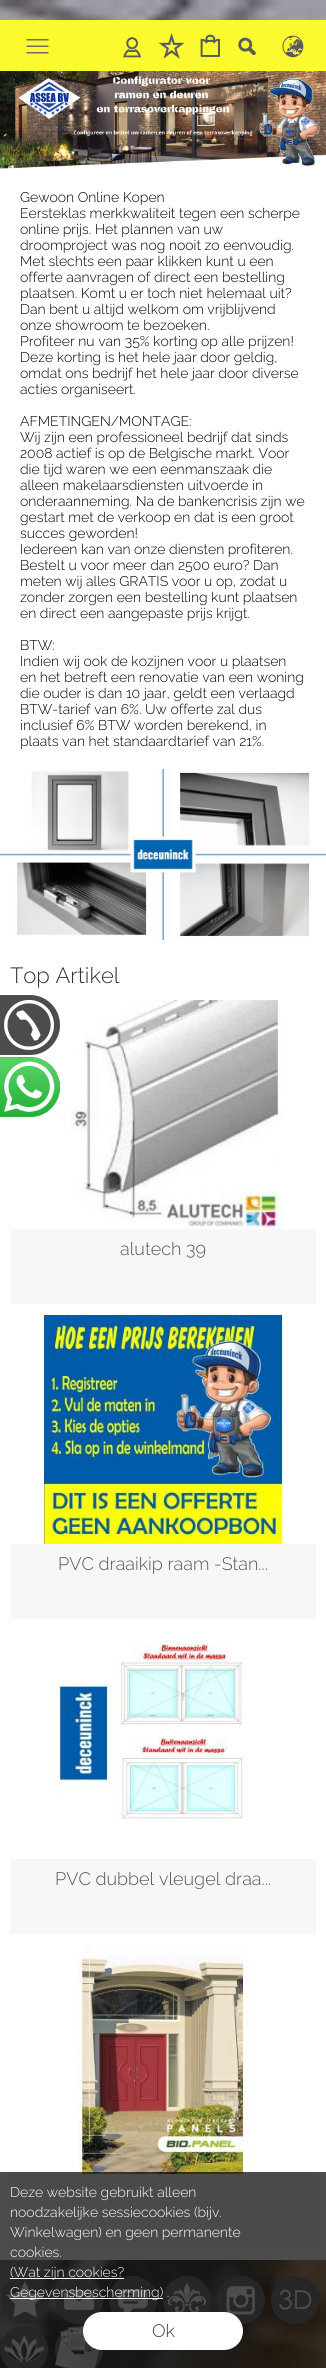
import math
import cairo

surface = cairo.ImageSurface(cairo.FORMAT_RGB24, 326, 2368)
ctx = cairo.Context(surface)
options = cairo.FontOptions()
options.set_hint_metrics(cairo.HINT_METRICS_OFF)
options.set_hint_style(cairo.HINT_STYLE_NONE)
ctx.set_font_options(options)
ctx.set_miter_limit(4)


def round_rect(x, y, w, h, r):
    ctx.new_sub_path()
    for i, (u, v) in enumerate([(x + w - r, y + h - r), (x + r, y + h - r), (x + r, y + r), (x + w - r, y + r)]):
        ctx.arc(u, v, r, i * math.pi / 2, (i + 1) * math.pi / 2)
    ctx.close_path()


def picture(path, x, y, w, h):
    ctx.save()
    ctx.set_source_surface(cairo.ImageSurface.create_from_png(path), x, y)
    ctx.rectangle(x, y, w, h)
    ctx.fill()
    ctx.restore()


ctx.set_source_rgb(1, 1, 1)
ctx.paint()
picture("img1.png", 0, 0, 326, 2368)
ctx.set_source_rgb(0.98, 0.98, 0.184)
ctx.rectangle(0, 20, 326, 51)
ctx.fill()
picture("img2.png", 26, 39, 23, 15)
picture("img3.png", 123, 37, 18, 21)
picture("img4.png", 158, 33, 27, 26)
picture("img5.png", 200, 34, 20, 23)
picture("img6.png", 238, 37, 18, 18)
picture("img7.png", 282, 35, 22, 23)
picture("img8.png", 0, 71, 326, 98)
ctx.set_source_rgb(1, 1, 1)
ctx.rectangle(0, 169, 326, 600)
ctx.fill()
ctx.select_font_face("Raleway Light")
ctx.set_font_size(14)
ctx.set_source_rgb(0, 0, 0)
ctx.move_to(20, 202)
ctx.show_text("Gewoon Online Kopen")
ctx.move_to(20, 218)
ctx.show_text("Eersteklas merkkwaliteit tegen een scherpe")
ctx.move_to(20, 234)
ctx.show_text("online prijs. Het plannen van uw")
ctx.move_to(20, 250)
ctx.show_text("droomproject was nog nooit zo eenvoudig.")
ctx.move_to(20, 266)
ctx.show_text("Met slechts een paar klikken kunt u een")
ctx.move_to(20, 282)
ctx.show_text("offerte aanvragen of direct een bestelling")
ctx.move_to(20, 298)
ctx.show_text("plaatsen. Komt u er toch niet helemaal uit?")
ctx.move_to(20, 314)
ctx.show_text("Dan bent u altijd welkom om vrijblijvend")
ctx.move_to(20, 330)
ctx.show_text("onze showroom te bezoeken.")
ctx.move_to(20, 346)
ctx.show_text("Profiteer nu van 35% korting op alle prijzen!")
ctx.move_to(20, 362)
ctx.show_text("Deze korting is het hele jaar door geldig,")
ctx.move_to(20, 378)
ctx.show_text("omdat ons bedrijf het hele jaar door diverse")
ctx.move_to(20, 394)
ctx.show_text("acties organiseert.")
ctx.move_to(20, 426)
ctx.show_text("AFMETINGEN/MONTAGE:")
ctx.move_to(20, 442)
ctx.show_text("Wij zijn een professioneel bedrijf dat sinds")
ctx.move_to(20, 458)
ctx.show_text("2008 actief is op de Belgische markt. Voor")
ctx.move_to(20, 474)
ctx.show_text("die tijd waren we een eenmanszaak die")
ctx.move_to(20, 490)
ctx.show_text("alleen makelaarsdiensten uitvoerde in")
ctx.move_to(20, 506)
ctx.show_text("onderaanneming. Na de bankencrisis zijn we")
ctx.move_to(20, 522)
ctx.show_text("gestart met de verkoop en dat is een groot")
ctx.move_to(20, 538)
ctx.show_text("succes geworden!")
ctx.move_to(20, 554)
ctx.show_text("Iedereen kan van onze diensten profiteren.")
ctx.move_to(20, 570)
ctx.show_text("Bestelt u voor meer dan 2500 euro? Dan")
ctx.move_to(20, 586)
ctx.show_text("meten wij alles GRATIS voor u op, zodat u")
ctx.move_to(20, 602)
ctx.show_text("zonder zorgen een bestelling kunt plaatsen")
ctx.move_to(20, 618)
ctx.show_text("en direct een aangepaste prijs krijgt.")
ctx.move_to(20, 650)
ctx.show_text("BTW:")
ctx.move_to(20, 666)
ctx.show_text("Indien wij ook de kozijnen voor u plaatsen")
ctx.move_to(20, 682)
ctx.show_text("en het betreft een renovatie van een woning")
ctx.move_to(20, 698)
ctx.show_text("die ouder is dan 10 jaar, geldt een verlaagd")
ctx.move_to(20, 714)
ctx.show_text("BTW-tarief van 6%. Uw offerte zal dus")
ctx.move_to(20, 730)
ctx.show_text("inclusief 6% BTW worden berekend, in")
ctx.move_to(20, 746)
ctx.show_text("plaats van het standaardtarief van 21%.")
picture("img9.png", 0, 769, 326, 171)
ctx.set_source_rgb(1, 1, 1)
ctx.rectangle(0, 940, 326, 1320)
ctx.fill()
ctx.set_font_size(22)
ctx.set_source_rgb(0.2, 0.2, 0.2)
ctx.move_to(10, 983)
ctx.show_text("Top Artikel")
picture("img10.png", 71, 1000, 211, 229)
ctx.set_source_rgb(0.965, 0.965, 0.965)
ctx.rectangle(10, 1229, 306, 75)
ctx.fill()
ctx.set_font_size(18)
ctx.set_source_rgb(0.333, 0.333, 0.333)
ctx.move_to(120, 1255)
ctx.show_text("alutech 39")
picture("img11.png", 37, 1315, 246, 229)
ctx.set_source_rgb(0.965, 0.965, 0.965)
ctx.rectangle(10, 1544, 306, 75)
ctx.fill()
ctx.set_source_rgb(0.333, 0.333, 0.333)
ctx.move_to(58, 1570)
ctx.show_text("PVC draaikip raam -Stan...")
picture("img12.png", 51, 1643, 193, 177)
ctx.set_source_rgb(0.965, 0.965, 0.965)
ctx.rectangle(10, 1859, 306, 75)
ctx.fill()
ctx.set_source_rgb(0.333, 0.333, 0.333)
ctx.move_to(55, 1885)
ctx.show_text("PVC dubbel vleugel draa...")
picture("img13.png", 78, 1945, 177, 229)
ctx.set_source_rgb(0.965, 0.965, 0.965)
ctx.rectangle(10, 2174, 306, 75)
ctx.fill()
picture("img14.png", 1, 2276, 48, 48)
picture("img15.png", 55, 2276, 48, 48)
picture("img16.png", 109, 2276, 48, 36)
picture("img17.png", 163, 2276, 48, 36)
picture("img18.png", 217, 2276, 48, 48)
picture("img19.png", 271, 2276, 48, 48)
picture("img20.png", 0, 2326, 48, 42)
picture("img21.png", 55, 2326, 48, 42)
picture("img22.png", 0, 995, 60, 60)
picture("img23.png", 0, 1057, 60, 60)
ctx.set_source_rgba(0, 0, 0, 0.7)
ctx.rectangle(0, 2172, 326, 196)
ctx.fill()
ctx.set_font_size(14)
ctx.set_source_rgb(1, 1, 1)
ctx.move_to(10, 2197)
ctx.show_text("Deze website gebruikt alleen")
ctx.move_to(10, 2217)
ctx.show_text("noodzakelijke sessiecookies (bijv.")
ctx.move_to(10, 2237)
ctx.show_text("Winkelwagen) en geen permanente")
ctx.move_to(10, 2257)
ctx.show_text("cookies.")
ctx.rectangle(10, 2278, 114, 1)
ctx.fill()
ctx.move_to(10, 2277)
ctx.show_text("(Wat zijn cookies?")
ctx.rectangle(10, 2298, 153, 1)
ctx.fill()
ctx.move_to(10, 2297)
ctx.show_text("Gegevensbescherming) .")
round_rect(83, 2312, 160, 38, 19)
ctx.fill()
ctx.set_font_size(18)
ctx.set_source_rgb(0.243, 0.243, 0.243)
ctx.move_to(152, 2337)
ctx.show_text("Ok")
surface.write_to_png("page.png")
